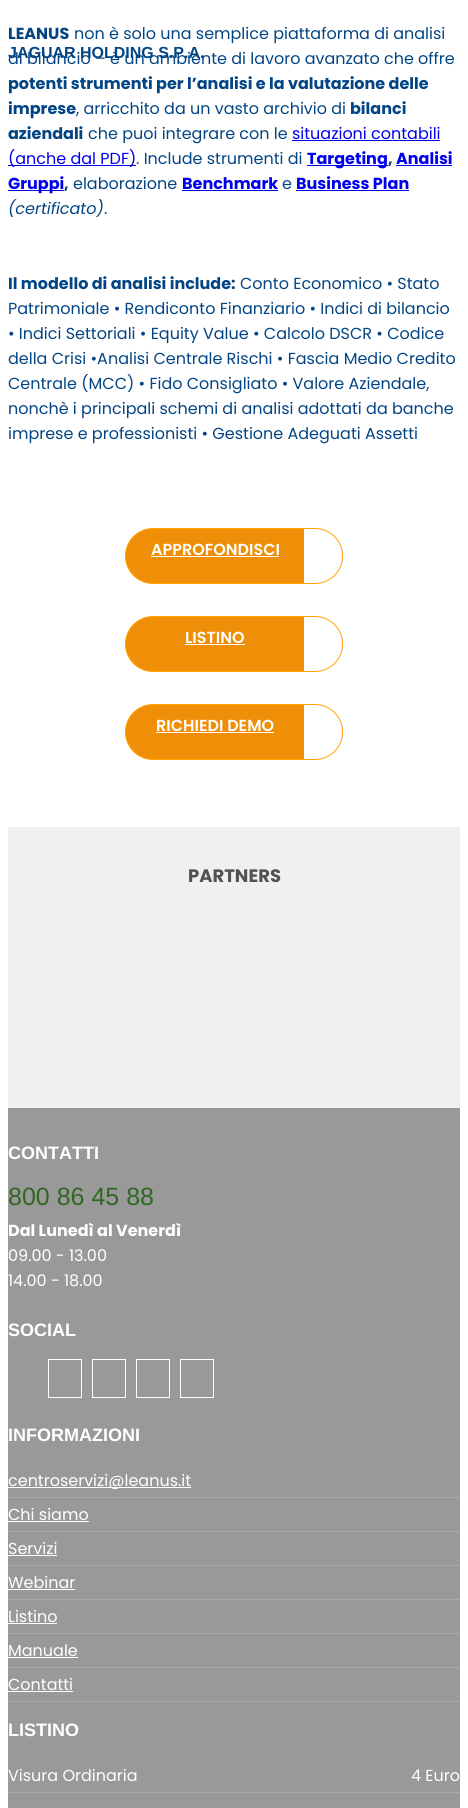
import math
import cairo

surface = cairo.ImageSurface(cairo.FORMAT_RGB24, 468, 1808)
ctx = cairo.Context(surface)
options = cairo.FontOptions()
options.set_hint_metrics(cairo.HINT_METRICS_OFF)
options.set_hint_style(cairo.HINT_STYLE_NONE)
ctx.set_font_options(options)
ctx.set_miter_limit(4)


def round_rect(x, y, w, h, r):
    ctx.new_sub_path()
    for i, (u, v) in enumerate([(x + w - r, y + h - r), (x + r, y + h - r), (x + r, y + r), (x + w - r, y + r)]):
        ctx.arc(u, v, r, i * math.pi / 2, (i + 1) * math.pi / 2)
    ctx.close_path()


ctx.set_source_rgb(1, 1, 1)
ctx.paint()
ctx.select_font_face("Poppins", cairo.FONT_SLANT_NORMAL, cairo.FONT_WEIGHT_BOLD)
ctx.set_font_size(16)
ctx.set_source_rgb(0.012, 0.271, 0.518)
ctx.move_to(8, 39)
ctx.show_text("LEANUS")
ctx.select_font_face("Poppins")
ctx.move_to(74, 39)
ctx.show_text("non è solo una semplice piattaforma di analisi")
ctx.select_font_face("Liberation Sans", cairo.FONT_SLANT_NORMAL, cairo.FONT_WEIGHT_BOLD)
ctx.move_to(8, 58)
ctx.show_text("JAGUAR HOLDING S.P.A.")
ctx.select_font_face("Poppins")
ctx.move_to(8, 64)
ctx.show_text("di bilancio – è un ambiente di lavoro avanzato che offre")
ctx.select_font_face("Poppins", cairo.FONT_SLANT_NORMAL, cairo.FONT_WEIGHT_BOLD)
ctx.move_to(8, 89)
ctx.show_text("potenti strumenti per l’analisi e la valutazione delle")
ctx.move_to(8, 114)
ctx.show_text("imprese")
ctx.select_font_face("Poppins")
ctx.move_to(76, 114)
ctx.show_text(", arricchito da un vasto archivio di")
ctx.select_font_face("Poppins", cairo.FONT_SLANT_NORMAL, cairo.FONT_WEIGHT_BOLD)
ctx.move_to(350, 114)
ctx.show_text("bilanci")
ctx.move_to(8, 139)
ctx.show_text("aziendali")
ctx.select_font_face("Poppins")
ctx.move_to(88, 139)
ctx.show_text("che puoi integrare con le")
ctx.set_source_rgb(0, 0, 0.933)
ctx.move_to(292, 139)
ctx.show_text("situazioni contabili")
ctx.rectangle(292, 140, 148, 1)
ctx.fill()
ctx.rectangle(8, 165, 128, 1)
ctx.fill()
ctx.move_to(8, 164)
ctx.show_text("(anche dal PDF)")
ctx.set_source_rgb(0.012, 0.271, 0.518)
ctx.move_to(136, 164)
ctx.show_text(". Include strumenti di")
ctx.set_source_rgb(0, 0, 0.933)
ctx.rectangle(307, 165, 81, 1)
ctx.fill()
ctx.select_font_face("Poppins", cairo.FONT_SLANT_NORMAL, cairo.FONT_WEIGHT_BOLD)
ctx.move_to(307, 164)
ctx.show_text("Targeting")
ctx.set_source_rgb(0.012, 0.271, 0.518)
ctx.move_to(388, 164)
ctx.show_text(",")
ctx.set_source_rgb(0, 0, 0.933)
ctx.rectangle(396, 165, 56, 1)
ctx.fill()
ctx.move_to(396, 164)
ctx.show_text("Analisi")
ctx.rectangle(8, 190, 56, 1)
ctx.fill()
ctx.move_to(8, 189)
ctx.show_text("Gruppi")
ctx.set_source_rgb(0.012, 0.271, 0.518)
ctx.move_to(64, 189)
ctx.show_text(",")
ctx.select_font_face("Poppins")
ctx.move_to(73, 189)
ctx.show_text("elaborazione")
ctx.select_font_face("Poppins", cairo.FONT_SLANT_NORMAL, cairo.FONT_WEIGHT_BOLD)
ctx.set_source_rgb(0, 0, 0.933)
ctx.move_to(182, 189)
ctx.show_text("Benchmark")
ctx.rectangle(182, 190, 96, 1)
ctx.fill()
ctx.select_font_face("Poppins")
ctx.set_source_rgb(0.012, 0.271, 0.518)
ctx.move_to(282, 189)
ctx.show_text("e")
ctx.select_font_face("Poppins", cairo.FONT_SLANT_NORMAL, cairo.FONT_WEIGHT_BOLD)
ctx.set_source_rgb(0, 0, 0.933)
ctx.move_to(296, 189)
ctx.show_text("Business Plan")
ctx.rectangle(296, 190, 113, 1)
ctx.fill()
ctx.select_font_face("Poppins", cairo.FONT_SLANT_ITALIC)
ctx.set_source_rgb(0.012, 0.271, 0.518)
ctx.move_to(8, 214)
ctx.show_text("(certificato)")
ctx.select_font_face("Poppins")
ctx.move_to(104, 214)
ctx.show_text(".")
ctx.select_font_face("Poppins", cairo.FONT_SLANT_NORMAL, cairo.FONT_WEIGHT_BOLD)
ctx.move_to(8, 289)
ctx.show_text("Il modello di analisi include:")
ctx.select_font_face("Poppins")
ctx.move_to(240, 289)
ctx.show_text("Conto Economico • Stato")
ctx.move_to(8, 314)
ctx.show_text("Patrimoniale • Rendiconto Finanziario • Indici di bilancio")
ctx.move_to(8, 339)
ctx.show_text("• Indici Settoriali • Equity Value • Calcolo DSCR • Codice")
ctx.move_to(8, 364)
ctx.show_text("della Crisi •Analisi Centrale Rischi • Fascia Medio Credito")
ctx.move_to(8, 389)
ctx.show_text("Centrale (MCC) • Fido Consigliato • Valore Aziendale,")
ctx.move_to(8, 414)
ctx.show_text("nonchè i principali schemi di analisi adottati da banche")
ctx.move_to(8, 439)
ctx.show_text("imprese e professionisti • Gestione Adeguati Assetti")
ctx.set_source_rgb(0.937, 0.557, 0.031)
round_rect(125.5, 528.5, 217, 55, 27.5)
ctx.fill_preserve()
ctx.set_source_rgb(1, 0.647, 0)
ctx.set_line_width(1)
ctx.stroke()
ctx.select_font_face("Poppins SemiBold")
ctx.set_source_rgb(1, 1, 1)
ctx.move_to(151, 555)
ctx.show_text("APPROFONDISCI")
ctx.rectangle(151, 556, 128, 1)
ctx.fill()
ctx.new_path()
ctx.move_to(304, 529)
ctx.line_to(315, 529)
ctx.curve_to(330, 529, 342, 541, 342, 556)
ctx.curve_to(342, 571, 330, 583, 315, 583)
ctx.line_to(304, 583)
ctx.close_path()
ctx.fill()
ctx.set_source_rgb(0.937, 0.557, 0.031)
round_rect(125.5, 616.5, 217, 55, 27.5)
ctx.fill_preserve()
ctx.set_source_rgb(1, 0.647, 0)
ctx.stroke()
ctx.set_source_rgb(1, 1, 1)
ctx.move_to(185, 643)
ctx.show_text("LISTINO")
ctx.rectangle(185, 644, 60, 1)
ctx.fill()
ctx.new_path()
ctx.move_to(304, 617)
ctx.line_to(315, 617)
ctx.curve_to(330, 617, 342, 629, 342, 644)
ctx.curve_to(342, 659, 330, 671, 315, 671)
ctx.line_to(304, 671)
ctx.close_path()
ctx.fill()
ctx.set_source_rgb(0.937, 0.557, 0.031)
round_rect(125.5, 704.5, 217, 55, 27.5)
ctx.fill_preserve()
ctx.set_source_rgb(1, 0.647, 0)
ctx.stroke()
ctx.set_source_rgb(1, 1, 1)
ctx.move_to(156, 731)
ctx.show_text("RICHIEDI DEMO")
ctx.rectangle(156, 732, 118, 1)
ctx.fill()
ctx.new_path()
ctx.move_to(304, 705)
ctx.line_to(315, 705)
ctx.curve_to(330, 705, 342, 717, 342, 732)
ctx.curve_to(342, 747, 330, 759, 315, 759)
ctx.line_to(304, 759)
ctx.close_path()
ctx.fill()
ctx.set_source_rgb(0.941, 0.941, 0.941)
ctx.rectangle(8, 827, 452, 281)
ctx.fill()
ctx.select_font_face("Poppins", cairo.FONT_SLANT_NORMAL, cairo.FONT_WEIGHT_BOLD)
ctx.set_font_size(18)
ctx.set_source_rgb(0.322, 0.322, 0.322)
ctx.move_to(188, 882)
ctx.show_text("PARTNERS")
ctx.set_source_rgb(0.6, 0.6, 0.6)
ctx.rectangle(8, 1108, 452, 700)
ctx.fill()
ctx.select_font_face("Liberation Sans", cairo.FONT_SLANT_NORMAL, cairo.FONT_WEIGHT_BOLD)
ctx.set_source_rgb(1, 1, 1)
ctx.move_to(8, 1159)
ctx.show_text("CONTATTI")
ctx.select_font_face("Liberation Sans")
ctx.set_font_size(25)
ctx.set_source_rgb(0.188, 0.408, 0.133)
ctx.move_to(8, 1205)
ctx.show_text("800 86 45 88")
ctx.select_font_face("Poppins", cairo.FONT_SLANT_NORMAL, cairo.FONT_WEIGHT_BOLD)
ctx.set_font_size(16)
ctx.set_source_rgb(1, 1, 1)
ctx.move_to(8, 1236)
ctx.show_text("Dal Lunedì al Venerdì")
ctx.select_font_face("Poppins")
ctx.move_to(8, 1261)
ctx.show_text("09.00 - 13.00")
ctx.move_to(8, 1286)
ctx.show_text("14.00 - 18.00")
ctx.select_font_face("Liberation Sans", cairo.FONT_SLANT_NORMAL, cairo.FONT_WEIGHT_BOLD)
ctx.set_font_size(18)
ctx.move_to(8, 1336)
ctx.show_text("SOCIAL")
ctx.rectangle(48.5, 1359.5, 33, 38)
ctx.stroke()
ctx.rectangle(92.5, 1359.5, 33, 38)
ctx.stroke()
ctx.rectangle(136.5, 1359.5, 33, 38)
ctx.stroke()
ctx.rectangle(180.5, 1359.5, 33, 38)
ctx.stroke()
ctx.move_to(8, 1441)
ctx.show_text("INFORMAZIONI")
ctx.set_source_rgb(0.667, 0.667, 0.667)
ctx.rectangle(8, 1497, 452, 1)
ctx.fill()
ctx.set_source_rgb(1, 1, 1)
ctx.rectangle(8, 1487, 183, 1)
ctx.fill()
ctx.select_font_face("Poppins")
ctx.set_font_size(16)
ctx.move_to(8, 1486)
ctx.show_text("centroservizi@leanus.it")
ctx.set_source_rgb(0.667, 0.667, 0.667)
ctx.rectangle(8, 1531, 452, 1)
ctx.fill()
ctx.set_source_rgb(1, 1, 1)
ctx.move_to(8, 1520)
ctx.show_text("Chi siamo")
ctx.rectangle(8, 1521, 81, 1)
ctx.fill()
ctx.set_source_rgb(0.667, 0.667, 0.667)
ctx.rectangle(8, 1565, 452, 1)
ctx.fill()
ctx.set_source_rgb(1, 1, 1)
ctx.move_to(8, 1554)
ctx.show_text("Servizi")
ctx.rectangle(8, 1555, 49, 1)
ctx.fill()
ctx.set_source_rgb(0.667, 0.667, 0.667)
ctx.rectangle(8, 1599, 452, 1)
ctx.fill()
ctx.set_source_rgb(1, 1, 1)
ctx.move_to(8, 1588)
ctx.show_text("Webinar")
ctx.rectangle(8, 1589, 67, 1)
ctx.fill()
ctx.set_source_rgb(0.667, 0.667, 0.667)
ctx.rectangle(8, 1633, 452, 1)
ctx.fill()
ctx.set_source_rgb(1, 1, 1)
ctx.move_to(8, 1622)
ctx.show_text("Listino")
ctx.rectangle(8, 1623, 49, 1)
ctx.fill()
ctx.set_source_rgb(0.667, 0.667, 0.667)
ctx.rectangle(8, 1667, 452, 1)
ctx.fill()
ctx.set_source_rgb(1, 1, 1)
ctx.move_to(8, 1656)
ctx.show_text("Manuale")
ctx.rectangle(8, 1657, 70, 1)
ctx.fill()
ctx.set_source_rgb(0.667, 0.667, 0.667)
ctx.rectangle(8, 1701, 452, 1)
ctx.fill()
ctx.set_source_rgb(1, 1, 1)
ctx.move_to(8, 1690)
ctx.show_text("Contatti")
ctx.rectangle(8, 1691, 65, 1)
ctx.fill()
ctx.select_font_face("Liberation Sans", cairo.FONT_SLANT_NORMAL, cairo.FONT_WEIGHT_BOLD)
ctx.set_font_size(18)
ctx.move_to(8, 1736)
ctx.show_text("LISTINO")
ctx.set_source_rgb(0.667, 0.667, 0.667)
ctx.rectangle(8, 1792, 452, 1)
ctx.fill()
ctx.select_font_face("Poppins")
ctx.set_font_size(16)
ctx.set_source_rgb(1, 1, 1)
ctx.move_to(8, 1781)
ctx.show_text("Visura Ordinaria")
ctx.move_to(411, 1781)
ctx.show_text("4 Euro")
surface.write_to_png("page.png")
